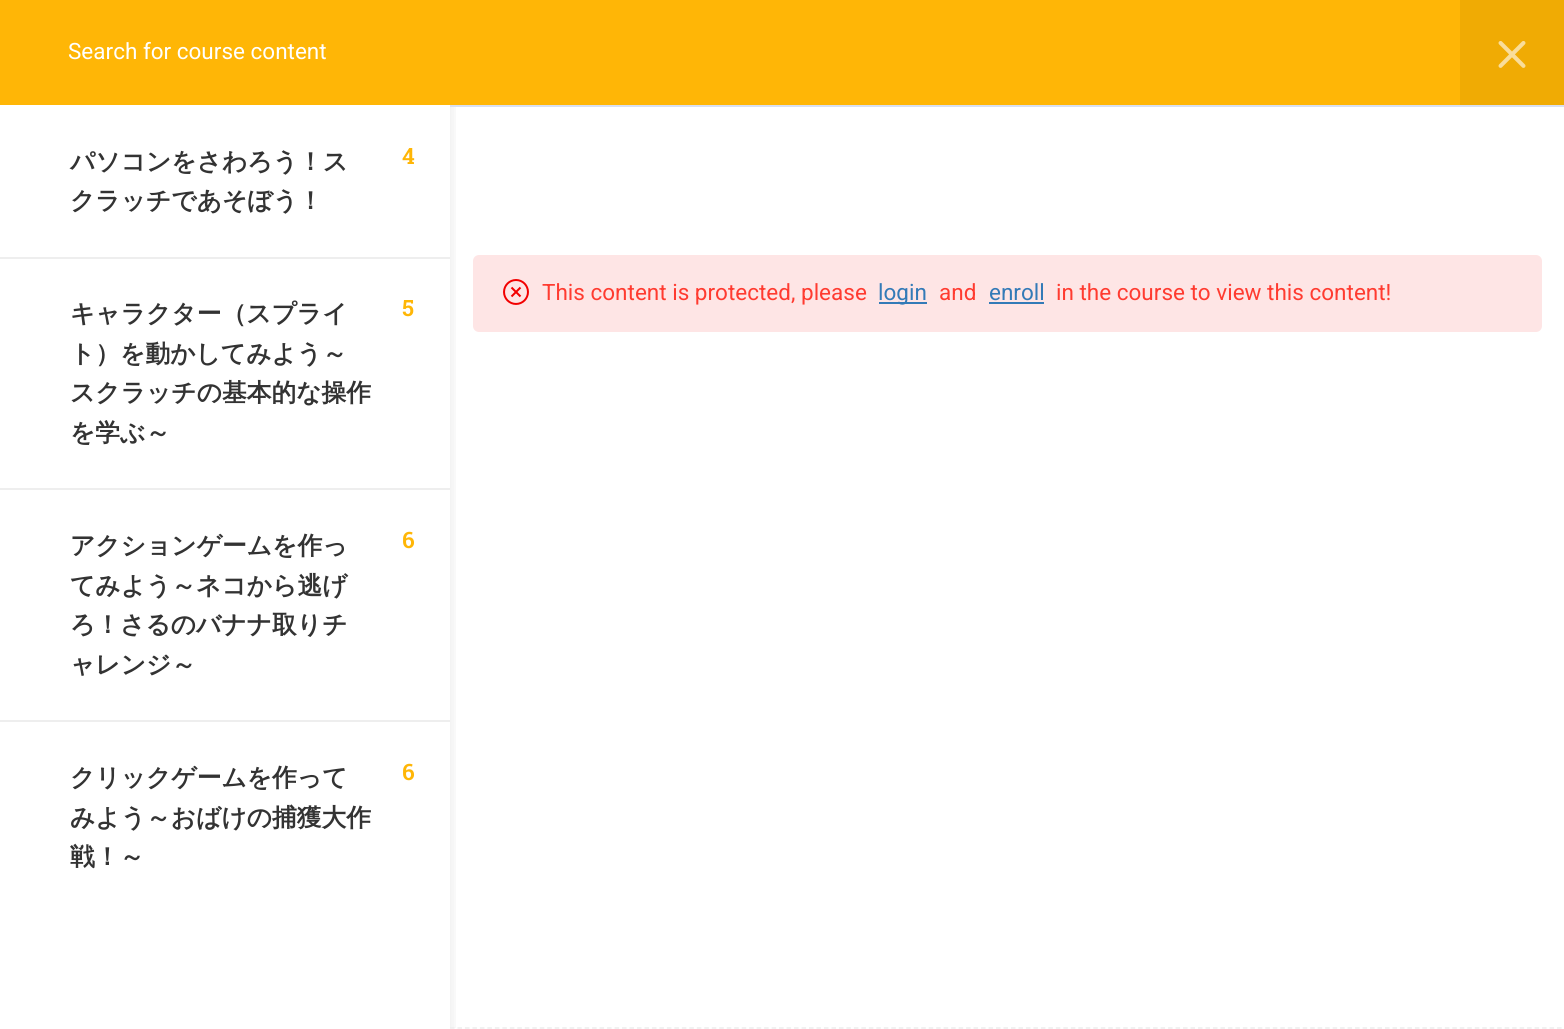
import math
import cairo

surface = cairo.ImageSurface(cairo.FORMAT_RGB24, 1564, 1029)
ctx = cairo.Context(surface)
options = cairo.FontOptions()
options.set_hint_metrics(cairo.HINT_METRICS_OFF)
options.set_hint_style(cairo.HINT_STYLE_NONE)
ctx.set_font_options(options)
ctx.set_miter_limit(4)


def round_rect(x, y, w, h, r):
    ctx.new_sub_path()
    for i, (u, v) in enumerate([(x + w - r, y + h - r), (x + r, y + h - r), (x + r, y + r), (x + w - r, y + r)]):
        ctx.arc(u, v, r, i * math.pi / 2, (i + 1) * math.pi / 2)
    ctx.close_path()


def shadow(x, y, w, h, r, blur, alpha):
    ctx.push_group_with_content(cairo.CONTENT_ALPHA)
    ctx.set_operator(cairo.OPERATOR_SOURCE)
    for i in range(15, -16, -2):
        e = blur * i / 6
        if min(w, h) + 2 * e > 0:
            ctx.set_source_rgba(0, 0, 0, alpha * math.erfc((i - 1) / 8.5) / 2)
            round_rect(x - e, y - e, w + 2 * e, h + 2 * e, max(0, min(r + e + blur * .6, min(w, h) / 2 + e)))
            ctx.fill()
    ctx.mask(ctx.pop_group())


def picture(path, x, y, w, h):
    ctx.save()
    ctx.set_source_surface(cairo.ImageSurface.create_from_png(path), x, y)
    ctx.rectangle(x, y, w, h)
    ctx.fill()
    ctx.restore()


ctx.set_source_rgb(1, 1, 1)
ctx.paint()
ctx.set_source_rgb(0.996, 0.898, 0.898)
round_rect(473, 255, 1069, 77, 6)
ctx.fill()
ctx.save()
ctx.rectangle(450, 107, 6, 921)
ctx.clip()
ctx.set_source_rgb(0, 0, 0)
shadow(0, 3, 450, 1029, 0, 7.5, 0.1)
ctx.restore()
ctx.set_source_rgb(1, 0.714, 0.024)
ctx.rectangle(0, 0, 1460, 105)
ctx.fill()
ctx.select_font_face("Roboto")
ctx.set_font_size(22.5)
ctx.set_source_rgb(1, 1, 1)
ctx.move_to(68, 59)
ctx.show_text("Search for course content")
ctx.set_source_rgb(0.933, 0.933, 0.933)
ctx.rectangle(0, 257, 450, 2)
ctx.fill()
ctx.select_font_face("WenQuanYi Zen Hei", cairo.FONT_SLANT_NORMAL, cairo.FONT_WEIGHT_BOLD)
ctx.set_font_size(24.75)
ctx.set_source_rgb(0.2, 0.2, 0.2)
ctx.move_to(70, 170)
ctx.show_text("パソコンをさわろう！ス")
ctx.move_to(70, 209)
ctx.show_text("クラッチであそぼう！")
ctx.select_font_face("Roboto Slab SemiBold")
ctx.set_font_size(22.5)
ctx.set_source_rgb(1, 0.714, 0.024)
ctx.move_to(402, 164)
ctx.show_text("4")
ctx.set_source_rgb(0.933, 0.933, 0.933)
ctx.rectangle(0, 488, 450, 2)
ctx.fill()
ctx.select_font_face("WenQuanYi Zen Hei", cairo.FONT_SLANT_NORMAL, cairo.FONT_WEIGHT_BOLD)
ctx.set_font_size(24.75)
ctx.set_source_rgb(0.2, 0.2, 0.2)
ctx.move_to(70, 322)
ctx.show_text("キャラクター（スプライ")
ctx.move_to(70, 362)
ctx.show_text("ト）を動かしてみよう～")
ctx.move_to(70, 401)
ctx.show_text("スクラッチの基本的な操作")
ctx.move_to(70, 441)
ctx.show_text("を学ぶ～")
ctx.select_font_face("Roboto Slab SemiBold")
ctx.set_font_size(22.5)
ctx.set_source_rgb(1, 0.714, 0.024)
ctx.move_to(402, 316)
ctx.show_text("5")
ctx.set_source_rgb(0.933, 0.933, 0.933)
ctx.rectangle(0, 720, 450, 2)
ctx.fill()
ctx.select_font_face("WenQuanYi Zen Hei", cairo.FONT_SLANT_NORMAL, cairo.FONT_WEIGHT_BOLD)
ctx.set_font_size(24.75)
ctx.set_source_rgb(0.2, 0.2, 0.2)
ctx.move_to(70, 554)
ctx.show_text("アクションゲームを作っ")
ctx.move_to(70, 594)
ctx.show_text("てみよう～ネコから逃げ")
ctx.move_to(70, 633)
ctx.show_text("ろ！さるのバナナ取りチ")
ctx.move_to(70, 673)
ctx.show_text("ャレンジ～")
ctx.select_font_face("Roboto Slab SemiBold")
ctx.set_font_size(22.5)
ctx.set_source_rgb(1, 0.714, 0.024)
ctx.move_to(402, 548)
ctx.show_text("6")
ctx.select_font_face("WenQuanYi Zen Hei", cairo.FONT_SLANT_NORMAL, cairo.FONT_WEIGHT_BOLD)
ctx.set_font_size(24.75)
ctx.set_source_rgb(0.2, 0.2, 0.2)
ctx.move_to(70, 786)
ctx.show_text("クリックゲームを作って")
ctx.move_to(70, 826)
ctx.show_text("みよう～おばけの捕獲大作")
ctx.move_to(70, 865)
ctx.show_text("戦！～")
ctx.select_font_face("Roboto Slab SemiBold")
ctx.set_font_size(22.5)
ctx.set_source_rgb(1, 0.714, 0.024)
ctx.move_to(402, 780)
ctx.show_text("6")
ctx.set_source_rgb(0.851, 0.878, 0.945)
ctx.rectangle(450, 105, 1114, 2)
ctx.fill()
ctx.set_source_rgb(0.941, 0.671, 0.016)
ctx.rectangle(1460, 0, 104, 105)
ctx.fill()
picture("img1.png", 1498, 41, 28, 27)
picture("img2.png", 503, 279, 26, 26)
ctx.select_font_face("Roboto")
ctx.set_source_rgb(1, 0.231, 0.188)
ctx.move_to(542, 300)
ctx.show_text("This content is protected, please")
ctx.set_source_rgb(0.2, 0.478, 0.718)
ctx.rectangle(879, 302, 48, 2)
ctx.fill()
ctx.move_to(878, 300)
ctx.show_text("login")
ctx.set_source_rgb(1, 0.231, 0.188)
ctx.move_to(939, 300)
ctx.show_text("and")
ctx.set_source_rgb(0.2, 0.478, 0.718)
ctx.move_to(989, 300)
ctx.show_text("enroll")
ctx.rectangle(989, 302, 55, 2)
ctx.fill()
ctx.set_source_rgb(1, 0.231, 0.188)
ctx.move_to(1056, 300)
ctx.show_text("in the course to view this content!")
ctx.set_source_rgb(1, 1, 1)
ctx.rectangle(450, 1028, 8, 1)
ctx.fill()
ctx.new_path()
ctx.move_to(450, 1028)
ctx.line_to(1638, 1028)
ctx.set_source_rgb(0.922, 0.922, 0.922)
ctx.set_line_width(1.5)
ctx.set_dash([4.5, 2.98])
ctx.stroke()
surface.write_to_png("page.png")
